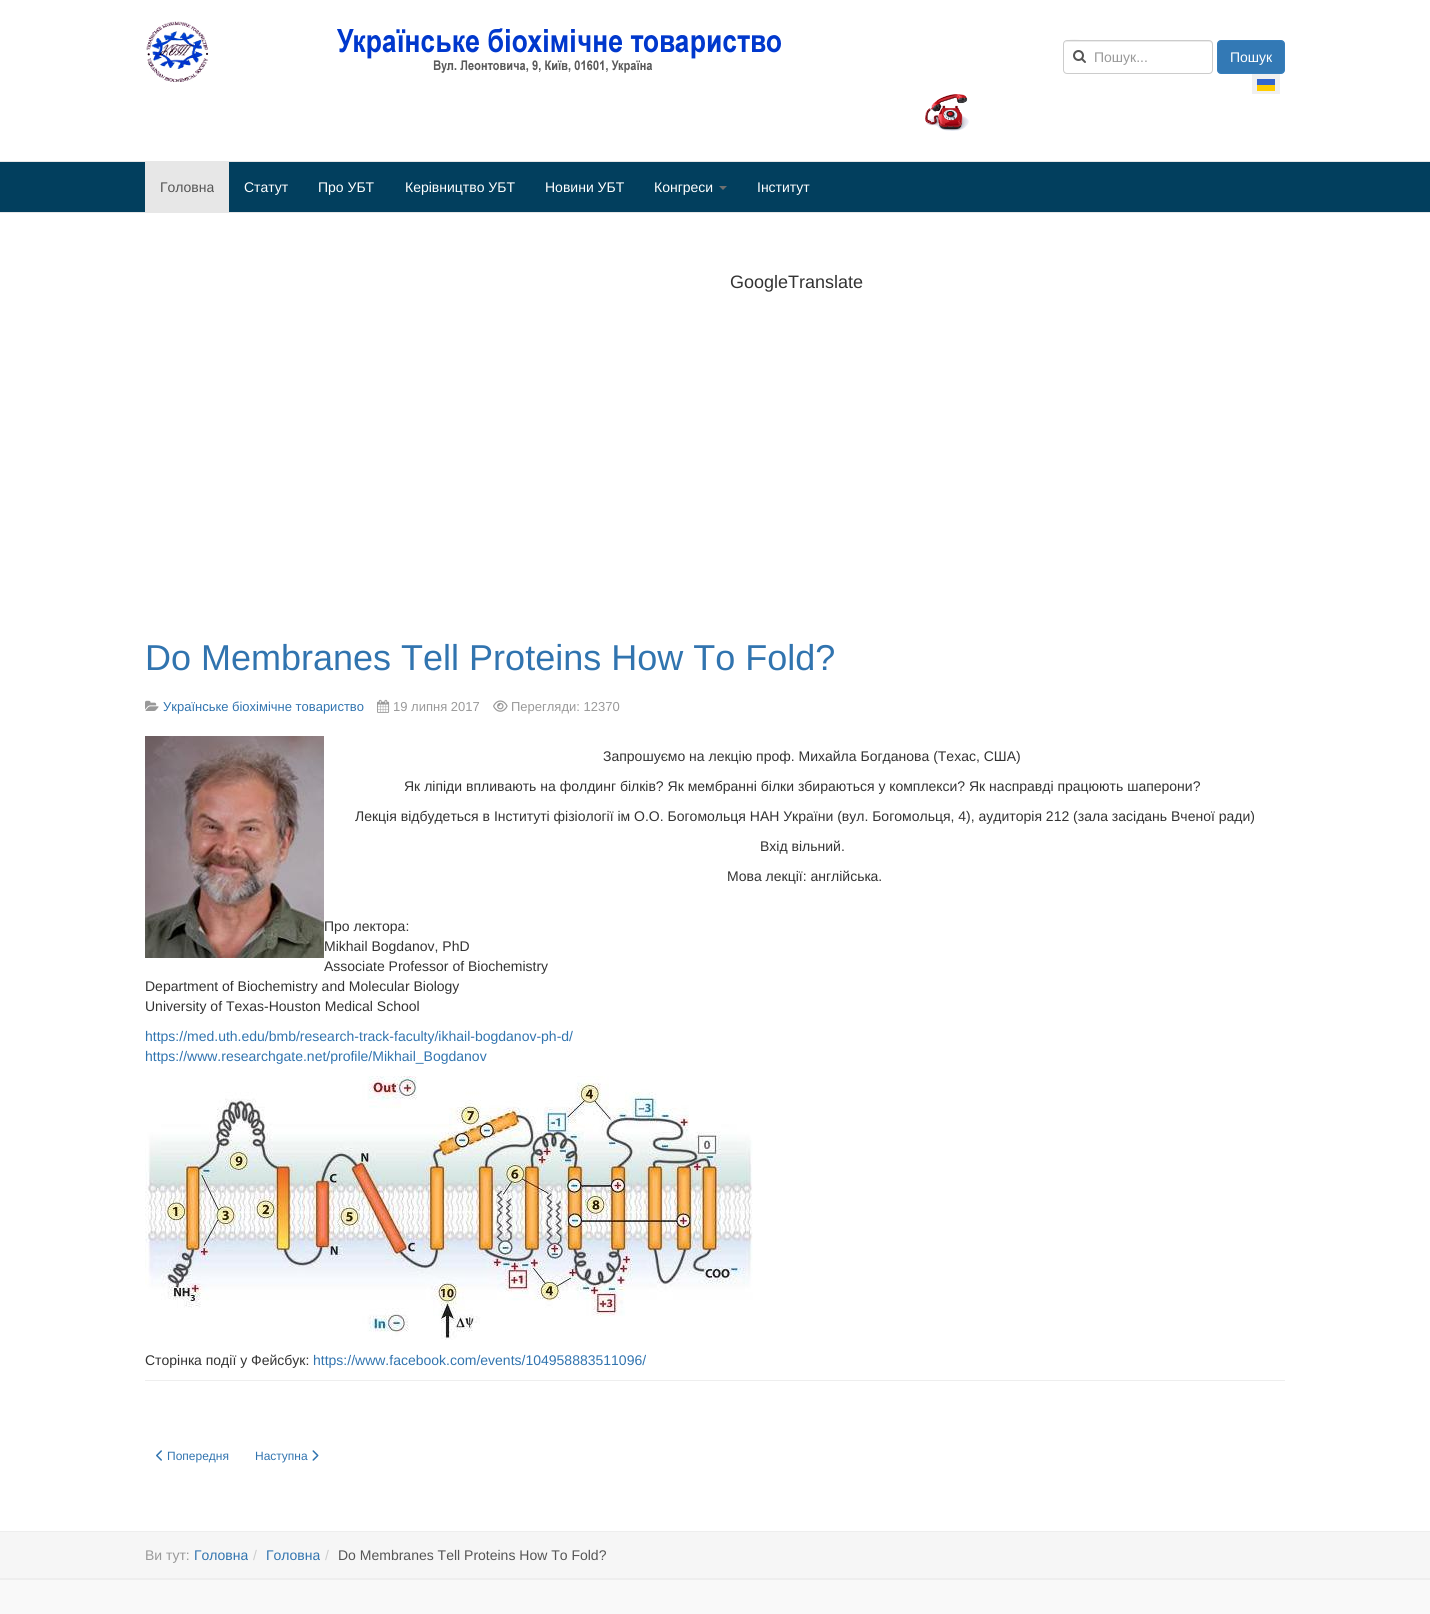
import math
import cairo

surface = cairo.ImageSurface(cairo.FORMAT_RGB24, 1430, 1614)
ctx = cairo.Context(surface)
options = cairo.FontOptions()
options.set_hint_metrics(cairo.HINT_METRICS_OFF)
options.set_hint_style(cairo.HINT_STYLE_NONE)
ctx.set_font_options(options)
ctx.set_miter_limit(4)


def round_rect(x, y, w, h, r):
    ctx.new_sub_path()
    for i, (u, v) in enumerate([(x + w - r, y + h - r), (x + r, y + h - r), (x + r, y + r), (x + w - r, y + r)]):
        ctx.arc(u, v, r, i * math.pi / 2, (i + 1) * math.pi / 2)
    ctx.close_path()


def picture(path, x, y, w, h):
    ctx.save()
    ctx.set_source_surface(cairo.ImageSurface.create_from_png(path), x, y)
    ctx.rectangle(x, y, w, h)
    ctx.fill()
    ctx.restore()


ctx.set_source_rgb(1, 1, 1)
ctx.paint()
picture("img1.png", 146, 21, 635, 61)
ctx.set_source_rgb(0.925, 0.925, 0.925)
ctx.new_path()
ctx.move_to(1067, 42)
ctx.line_to(1209, 42)
ctx.curve_to(1211, 42, 1212, 43, 1212, 45)
ctx.curve_to(1212, 43, 1212, 42, 1210, 41)
ctx.line_to(1091, 41)
ctx.curve_to(1083, 41, 1064, 36, 1064, 45)
ctx.curve_to(1064, 43, 1065, 42, 1067, 42)
ctx.close_path()
ctx.fill()
round_rect(1063.5, 40.5, 149, 33, 3.5)
ctx.set_source_rgb(0.8, 0.8, 0.8)
ctx.set_line_width(1)
ctx.stroke()
picture("img2.png", 1073, 50, 13, 13)
ctx.select_font_face("Liberation Sans")
ctx.set_font_size(14)
ctx.set_source_rgb(0.6, 0.6, 0.6)
ctx.move_to(1094, 62)
ctx.show_text("Пошук...")
ctx.set_source_rgb(0.2, 0.475, 0.71)
round_rect(1217.5, 40.5, 67, 33, 3.5)
ctx.fill_preserve()
ctx.set_source_rgb(0.208, 0.494, 0.741)
ctx.stroke()
ctx.set_source_rgb(1, 1, 1)
ctx.move_to(1230, 62)
ctx.show_text("Пошук")
ctx.set_source_rgb(0.941, 0.941, 0.941)
ctx.rectangle(1252, 74, 28, 20)
ctx.fill()
picture("img3.png", 1257, 79, 18, 12)
picture("img4.png", 925, 94, 44, 37)
ctx.set_source_rgb(0.008, 0.247, 0.369)
ctx.rectangle(0, 162, 1430, 50)
ctx.fill()
ctx.set_source_rgb(0.906, 0.906, 0.906)
ctx.rectangle(0, 161, 1430, 1)
ctx.fill()
ctx.rectangle(0, 212, 1430, 1)
ctx.fill()
ctx.rectangle(145, 162, 84, 50)
ctx.fill()
ctx.set_source_rgb(0.333, 0.333, 0.333)
ctx.move_to(160, 192)
ctx.show_text("Головна")
ctx.set_source_rgb(1, 1, 1)
ctx.move_to(244, 192)
ctx.show_text("Статут")
ctx.move_to(318, 192)
ctx.show_text("Про УБТ")
ctx.move_to(405, 192)
ctx.show_text("Керівництво УБТ")
ctx.move_to(545, 192)
ctx.show_text("Новини УБТ")
ctx.move_to(654, 192)
ctx.show_text("Конгреси")
ctx.set_source_rgb(0.439, 0.439, 0.439)
ctx.new_path()
ctx.move_to(719, 186)
ctx.line_to(727, 186)
ctx.line_to(723, 190)
ctx.close_path()
ctx.fill()
ctx.set_source_rgb(1, 1, 1)
ctx.move_to(757, 192)
ctx.show_text("Інститут")
ctx.set_font_size(18)
ctx.set_source_rgb(0.2, 0.2, 0.2)
ctx.move_to(730, 288)
ctx.show_text("GoogleTranslate")
ctx.set_font_size(36)
ctx.set_source_rgb(0.192, 0.455, 0.686)
ctx.move_to(145, 670)
ctx.show_text("Do Membranes Tell Proteins How To Fold?")
picture("img5.png", 145, 700, 14, 11)
ctx.set_font_size(13)
ctx.move_to(163, 711)
ctx.show_text("Українське біохімічне товариство")
picture("img6.png", 377, 699, 13, 14)
ctx.set_source_rgb(0.6, 0.6, 0.6)
ctx.move_to(393, 711)
ctx.show_text("19 липня 2017")
picture("img7.png", 493, 700, 15, 12)
ctx.move_to(511, 711)
ctx.show_text("Перегляди: 12370")
picture("img8.png", 145, 736, 179, 222)
ctx.set_font_size(14)
ctx.set_source_rgb(0.2, 0.2, 0.2)
ctx.move_to(603, 761)
ctx.show_text("Запрошуємо на лекцію проф. Михайла Богданова (Техас, США)")
ctx.move_to(404, 791)
ctx.show_text("Як ліпіди впливають на фолдинг білків? Як мембранні білки збираються у комплекси? Як насправді працюють шаперони?")
ctx.move_to(355, 821)
ctx.show_text("Лекція відбудеться в Інституті фізіології ім О.О. Богомольця НАН України (вул. Богомольця, 4), аудиторія 212 (зала засідань Вченої ради)")
ctx.move_to(760, 851)
ctx.show_text("Вхід вільний.")
ctx.move_to(727, 881)
ctx.show_text("Мова лекції: англійська.")
ctx.move_to(324, 931)
ctx.show_text("Про лектора:")
ctx.move_to(324, 951)
ctx.show_text("Mikhail Bogdanov, PhD")
ctx.move_to(324, 971)
ctx.show_text("Associate Professor of Biochemistry")
ctx.move_to(145, 991)
ctx.show_text("Department of Biochemistry and Molecular Biology")
ctx.move_to(145, 1011)
ctx.show_text("University of Texas-Houston Medical School")
ctx.set_source_rgb(0.192, 0.455, 0.686)
ctx.move_to(145, 1041)
ctx.show_text("https://med.uth.edu/bmb/research-track-faculty/ikhail-bogdanov-ph-d/")
ctx.move_to(145, 1061)
ctx.show_text("https://www.researchgate.net/profile/Mikhail_Bogdanov")
picture("img9.png", 145, 1076, 608, 264)
ctx.set_source_rgb(0.2, 0.2, 0.2)
ctx.move_to(145, 1365)
ctx.show_text("Сторінка події у Фейсбук:")
ctx.set_source_rgb(0.192, 0.455, 0.686)
ctx.move_to(313, 1365)
ctx.show_text("https://www.facebook.com/events/104958883511096/")
ctx.set_source_rgb(0.933, 0.933, 0.933)
ctx.rectangle(145, 1380, 1140, 1)
ctx.fill()
picture("img10.png", 156, 1450, 6, 11)
ctx.set_font_size(12)
ctx.set_source_rgb(0.192, 0.455, 0.686)
ctx.move_to(167, 1460)
ctx.show_text("Попередня")
ctx.move_to(255, 1460)
ctx.show_text("Наступна")
picture("img11.png", 312, 1450, 7, 11)
ctx.set_source_rgb(0.961, 0.961, 0.961)
ctx.rectangle(0, 1532, 1430, 46)
ctx.fill()
ctx.set_source_rgb(0.933, 0.933, 0.933)
ctx.rectangle(0, 1531, 1430, 1)
ctx.fill()
ctx.set_font_size(14)
ctx.set_source_rgb(0.6, 0.6, 0.6)
ctx.move_to(145, 1560)
ctx.show_text("Ви тут:")
ctx.set_source_rgb(0.192, 0.455, 0.686)
ctx.move_to(194, 1560)
ctx.show_text("Головна")
ctx.set_source_rgb(0.8, 0.8, 0.8)
ctx.move_to(253, 1560)
ctx.show_text("/")
ctx.set_source_rgb(0.192, 0.455, 0.686)
ctx.move_to(266, 1560)
ctx.show_text("Головна")
ctx.set_source_rgb(0.8, 0.8, 0.8)
ctx.move_to(325, 1560)
ctx.show_text("/")
ctx.set_source_rgb(0.333, 0.333, 0.333)
ctx.move_to(338, 1560)
ctx.show_text("Do Membranes Tell Proteins How To Fold?")
ctx.set_source_rgb(0.973, 0.973, 0.973)
ctx.rectangle(0, 1580, 1430, 34)
ctx.fill()
ctx.set_source_rgb(0.933, 0.933, 0.933)
ctx.rectangle(0, 1578, 1430, 2)
ctx.fill()
surface.write_to_png("page.png")
